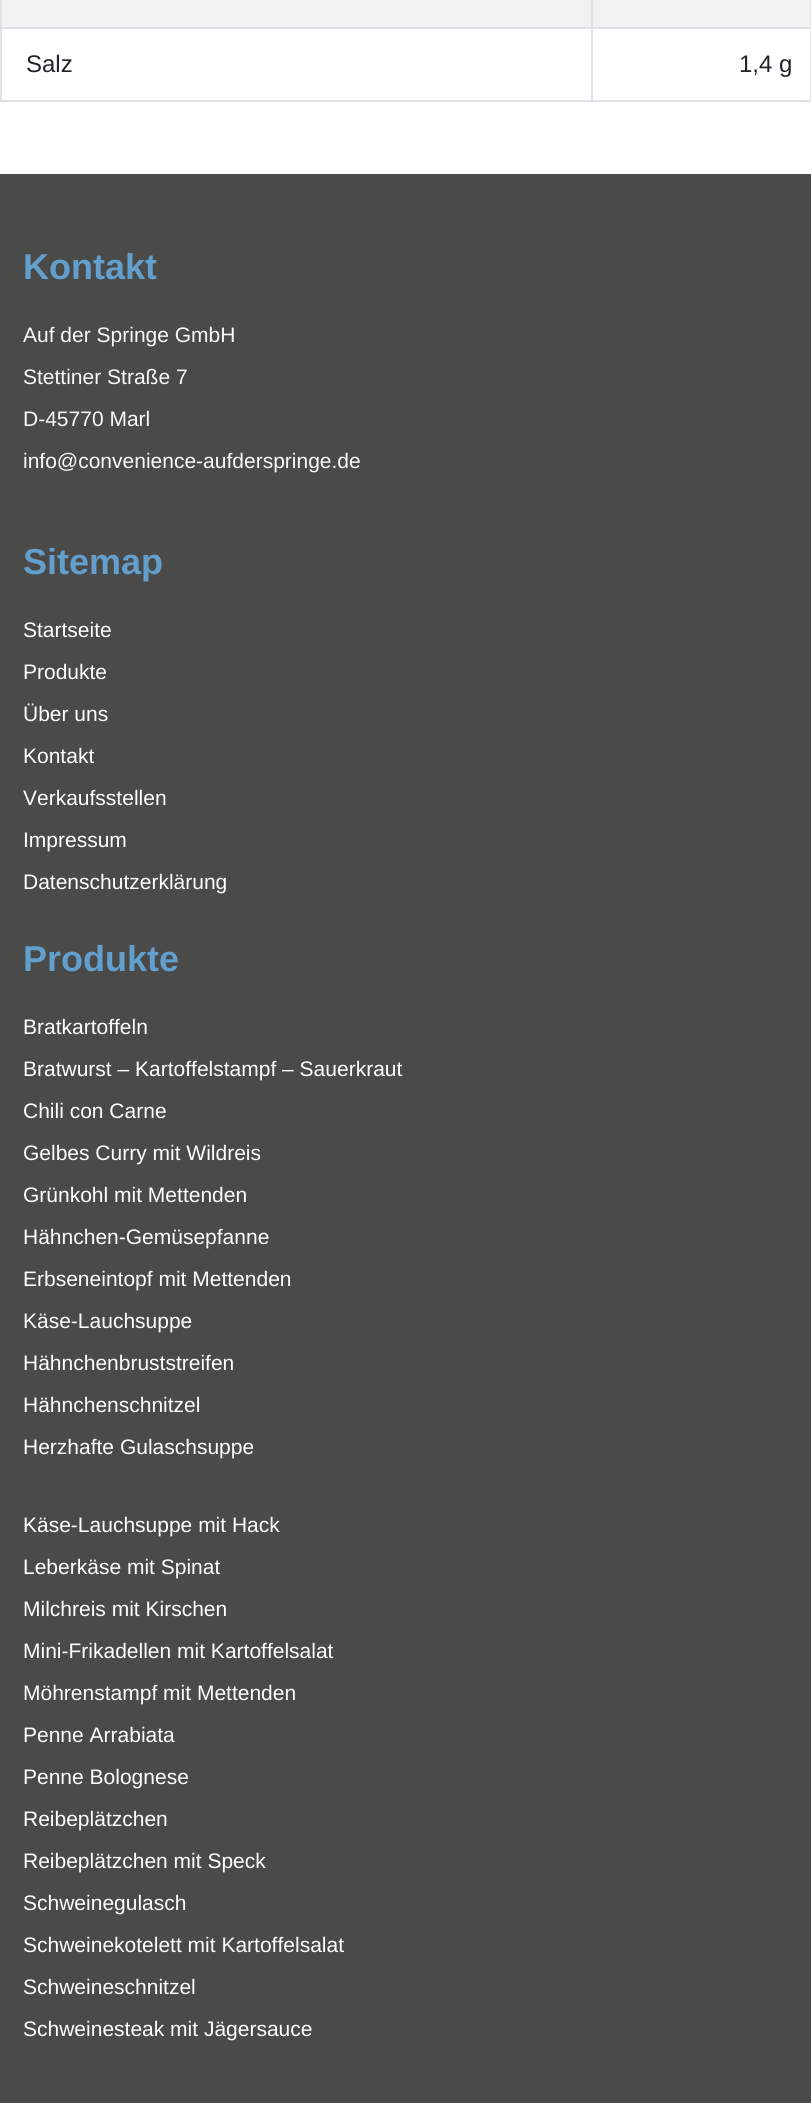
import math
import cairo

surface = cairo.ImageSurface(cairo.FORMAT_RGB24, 811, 2103)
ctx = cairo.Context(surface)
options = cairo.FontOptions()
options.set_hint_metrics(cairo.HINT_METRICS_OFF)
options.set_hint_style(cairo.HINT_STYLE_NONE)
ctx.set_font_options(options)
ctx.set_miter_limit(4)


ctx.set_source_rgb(1, 1, 1)
ctx.paint()
ctx.rectangle(1, -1, 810, 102)
ctx.set_source_rgb(0.871, 0.886, 0.902)
ctx.stroke()
ctx.set_source_rgb(0.949, 0.949, 0.949)
ctx.rectangle(2, 0, 808, 27)
ctx.fill()
ctx.set_source_rgb(0.871, 0.886, 0.902)
ctx.rectangle(2, 27, 809, 2)
ctx.fill()
ctx.rectangle(591, 0, 2, 101)
ctx.fill()
ctx.select_font_face("Liberation Sans")
ctx.set_font_size(24)
ctx.set_source_rgb(0.129, 0.145, 0.161)
ctx.move_to(26, 72)
ctx.show_text("Salz")
ctx.move_to(739, 72)
ctx.show_text("1,4 g")
ctx.set_source_rgb(0.29, 0.29, 0.286)
ctx.rectangle(0, 174, 811, 1929)
ctx.fill()
ctx.select_font_face("Liberation Sans", cairo.FONT_SLANT_NORMAL, cairo.FONT_WEIGHT_BOLD)
ctx.set_font_size(36)
ctx.set_source_rgb(0.384, 0.624, 0.804)
ctx.move_to(23, 279)
ctx.show_text("Kontakt")
ctx.select_font_face("Liberation Sans")
ctx.set_font_size(21)
ctx.set_source_rgb(0.973, 0.976, 0.98)
ctx.move_to(23, 342)
ctx.show_text("Auf der Springe GmbH")
ctx.move_to(23, 384)
ctx.show_text("Stettiner Straße 7")
ctx.move_to(23, 426)
ctx.show_text("D-45770 Marl")
ctx.move_to(23, 468)
ctx.show_text("info@convenience-aufderspringe.de")
ctx.select_font_face("Liberation Sans", cairo.FONT_SLANT_NORMAL, cairo.FONT_WEIGHT_BOLD)
ctx.set_font_size(36)
ctx.set_source_rgb(0.384, 0.624, 0.804)
ctx.move_to(23, 574)
ctx.show_text("Sitemap")
ctx.select_font_face("Liberation Sans")
ctx.set_font_size(21)
ctx.set_source_rgb(1, 1, 1)
ctx.move_to(23, 637)
ctx.show_text("Startseite")
ctx.move_to(23, 679)
ctx.show_text("Produkte")
ctx.move_to(23, 721)
ctx.show_text("Über uns")
ctx.move_to(23, 763)
ctx.show_text("Kontakt")
ctx.move_to(23, 805)
ctx.show_text("Verkaufsstellen")
ctx.move_to(23, 847)
ctx.show_text("Impressum")
ctx.move_to(23, 889)
ctx.show_text("Datenschutzerklärung")
ctx.select_font_face("Liberation Sans", cairo.FONT_SLANT_NORMAL, cairo.FONT_WEIGHT_BOLD)
ctx.set_font_size(36)
ctx.set_source_rgb(0.384, 0.624, 0.804)
ctx.move_to(23, 971)
ctx.show_text("Produkte")
ctx.select_font_face("Liberation Sans")
ctx.set_font_size(21)
ctx.set_source_rgb(1, 1, 1)
ctx.move_to(23, 1034)
ctx.show_text("Bratkartoffeln")
ctx.move_to(23, 1076)
ctx.show_text("Bratwurst – Kartoffelstampf – Sauerkraut")
ctx.move_to(23, 1118)
ctx.show_text("Chili con Carne")
ctx.move_to(23, 1160)
ctx.show_text("Gelbes Curry mit Wildreis")
ctx.move_to(23, 1202)
ctx.show_text("Grünkohl mit Mettenden")
ctx.move_to(23, 1244)
ctx.show_text("Hähnchen-Gemüsepfanne")
ctx.move_to(23, 1286)
ctx.show_text("Erbseneintopf mit Mettenden")
ctx.move_to(23, 1328)
ctx.show_text("Käse-Lauchsuppe")
ctx.move_to(23, 1370)
ctx.show_text("Hähnchenbruststreifen")
ctx.move_to(23, 1412)
ctx.show_text("Hähnchenschnitzel")
ctx.move_to(23, 1454)
ctx.show_text("Herzhafte Gulaschsuppe")
ctx.move_to(23, 1532)
ctx.show_text("Käse-Lauchsuppe mit Hack")
ctx.move_to(23, 1574)
ctx.show_text("Leberkäse mit Spinat")
ctx.move_to(23, 1616)
ctx.show_text("Milchreis mit Kirschen")
ctx.move_to(23, 1658)
ctx.show_text("Mini-Frikadellen mit Kartoffelsalat")
ctx.move_to(23, 1700)
ctx.show_text("Möhrenstampf mit Mettenden")
ctx.move_to(23, 1742)
ctx.show_text("Penne Arrabiata")
ctx.move_to(23, 1784)
ctx.show_text("Penne Bolognese")
ctx.move_to(23, 1826)
ctx.show_text("Reibeplätzchen")
ctx.move_to(23, 1868)
ctx.show_text("Reibeplätzchen mit Speck")
ctx.move_to(23, 1910)
ctx.show_text("Schweinegulasch")
ctx.move_to(23, 1952)
ctx.show_text("Schweinekotelett mit Kartoffelsalat")
ctx.move_to(23, 1994)
ctx.show_text("Schweineschnitzel")
ctx.move_to(23, 2036)
ctx.show_text("Schweinesteak mit Jägersauce")
surface.write_to_png("page.png")
